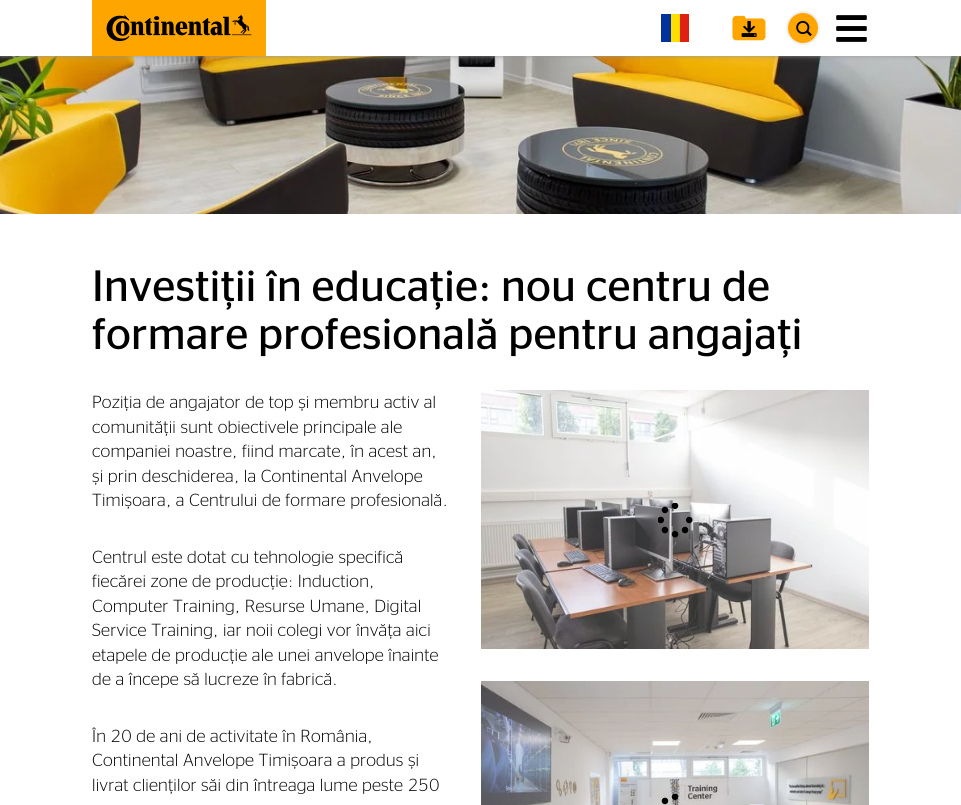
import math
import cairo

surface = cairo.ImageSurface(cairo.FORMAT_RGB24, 961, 805)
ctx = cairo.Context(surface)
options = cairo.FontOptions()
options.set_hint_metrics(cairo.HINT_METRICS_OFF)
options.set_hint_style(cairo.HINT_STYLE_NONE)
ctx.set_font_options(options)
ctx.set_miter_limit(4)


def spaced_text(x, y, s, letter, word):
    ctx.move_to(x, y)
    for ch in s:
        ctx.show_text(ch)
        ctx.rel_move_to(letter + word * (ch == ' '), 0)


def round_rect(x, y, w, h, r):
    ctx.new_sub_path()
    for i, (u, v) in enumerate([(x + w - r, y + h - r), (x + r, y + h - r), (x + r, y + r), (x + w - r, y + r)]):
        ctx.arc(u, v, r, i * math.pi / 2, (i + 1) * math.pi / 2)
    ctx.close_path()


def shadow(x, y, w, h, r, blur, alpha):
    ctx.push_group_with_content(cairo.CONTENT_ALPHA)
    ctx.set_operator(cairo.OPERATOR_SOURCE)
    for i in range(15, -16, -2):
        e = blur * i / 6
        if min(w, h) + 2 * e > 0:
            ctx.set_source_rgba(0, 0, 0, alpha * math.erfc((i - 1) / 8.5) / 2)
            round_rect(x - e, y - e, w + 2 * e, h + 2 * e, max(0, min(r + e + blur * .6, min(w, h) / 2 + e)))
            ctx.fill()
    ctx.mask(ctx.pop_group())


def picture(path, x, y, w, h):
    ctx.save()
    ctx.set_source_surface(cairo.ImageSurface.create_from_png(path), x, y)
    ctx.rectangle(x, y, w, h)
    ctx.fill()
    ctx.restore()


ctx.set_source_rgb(1, 1, 1)
ctx.paint()
picture("img5.png", 0, 56, 961, 158)
ctx.set_source_rgb(0.588, 0.588, 0.588)
shadow(0, 0, 961, 56, 0, 2.5, 1)
ctx.set_source_rgb(1, 1, 1)
ctx.rectangle(0, 0, 961, 56)
ctx.fill()
ctx.set_source_rgb(1, 0.647, 0)
ctx.rectangle(92, 0, 174, 56)
ctx.fill()
picture("img1.png", 106, 14, 146, 28)
ctx.set_source_rgb(0, 0.192, 0.612)
ctx.rectangle(661, 14, 10, 28)
ctx.fill()
ctx.set_source_rgb(1, 0.871, 0)
ctx.rectangle(671, 14, 9, 28)
ctx.fill()
ctx.set_source_rgb(0.871, 0.129, 0.063)
ctx.rectangle(680, 14, 9, 28)
ctx.fill()
picture("img2.png", 732, 15, 34, 26)
ctx.set_source_rgb(1, 0.647, 0)
ctx.arc(803, 28, 16, 0, 2 * math.pi)
ctx.fill_preserve()
ctx.set_source_rgb(0.941, 0.941, 0.941)
ctx.stroke()
picture("img3.png", 796, 20, 16, 16)
picture("img4.png", 836, 15, 31, 27)
ctx.select_font_face("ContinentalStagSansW")
ctx.set_font_size(43.75)
ctx.set_source_rgb(0, 0, 0)
spaced_text(92, 301, "Investiții în educație: nou centru de", 0.2, 0)
spaced_text(92, 349, "formare profesională pentru angajați", 0.2, 0)
ctx.select_font_face("ContinentalStagSansW Light")
ctx.set_font_size(17.5)
spaced_text(92, 408, "Poziția de angajator de top și membru activ al", 0.2, 0)
spaced_text(92, 433, "comunității sunt obiectivele principale ale", 0.2, 0)
spaced_text(92, 457, "companiei noastre, fiind marcate, în acest an,", 0.2, 0)
spaced_text(92, 482, "și prin deschiderea, la Continental Anvelope", 0.2, 0)
spaced_text(92, 506, "Timișoara, a Centrului de formare profesională.", 0.2, 0)
spaced_text(92, 563, "Centrul este dotat cu tehnologie specifică", 0.2, 0)
spaced_text(92, 587, "fiecărei zone de producție: Induction,", 0.2, 0)
spaced_text(92, 612, "Computer Training, Resurse Umane, Digital", 0.2, 0)
spaced_text(92, 636, "Service Training, iar noii colegi vor învăța aici", 0.2, 0)
spaced_text(92, 661, "etapele de producție ale unei anvelope înainte", 0.2, 0)
spaced_text(92, 685, "de a începe să lucreze în fabrică.", 0.2, 0)
spaced_text(92, 742, "În 20 de ani de activitate în România,", 0.2, 0)
spaced_text(92, 766, "Continental Anvelope Timișoara a produs și", 0.2, 0)
spaced_text(92, 791, "livrat clienților săi din întreaga lume peste 250", 0.2, 0)
picture("img6.png", 481, 390, 388, 259)
picture("img7.png", 658, 503, 35, 35)
picture("img8.png", 481, 681, 388, 124)
picture("img9.png", 661, 794, 18, 11)
surface.write_to_png("page.png")
